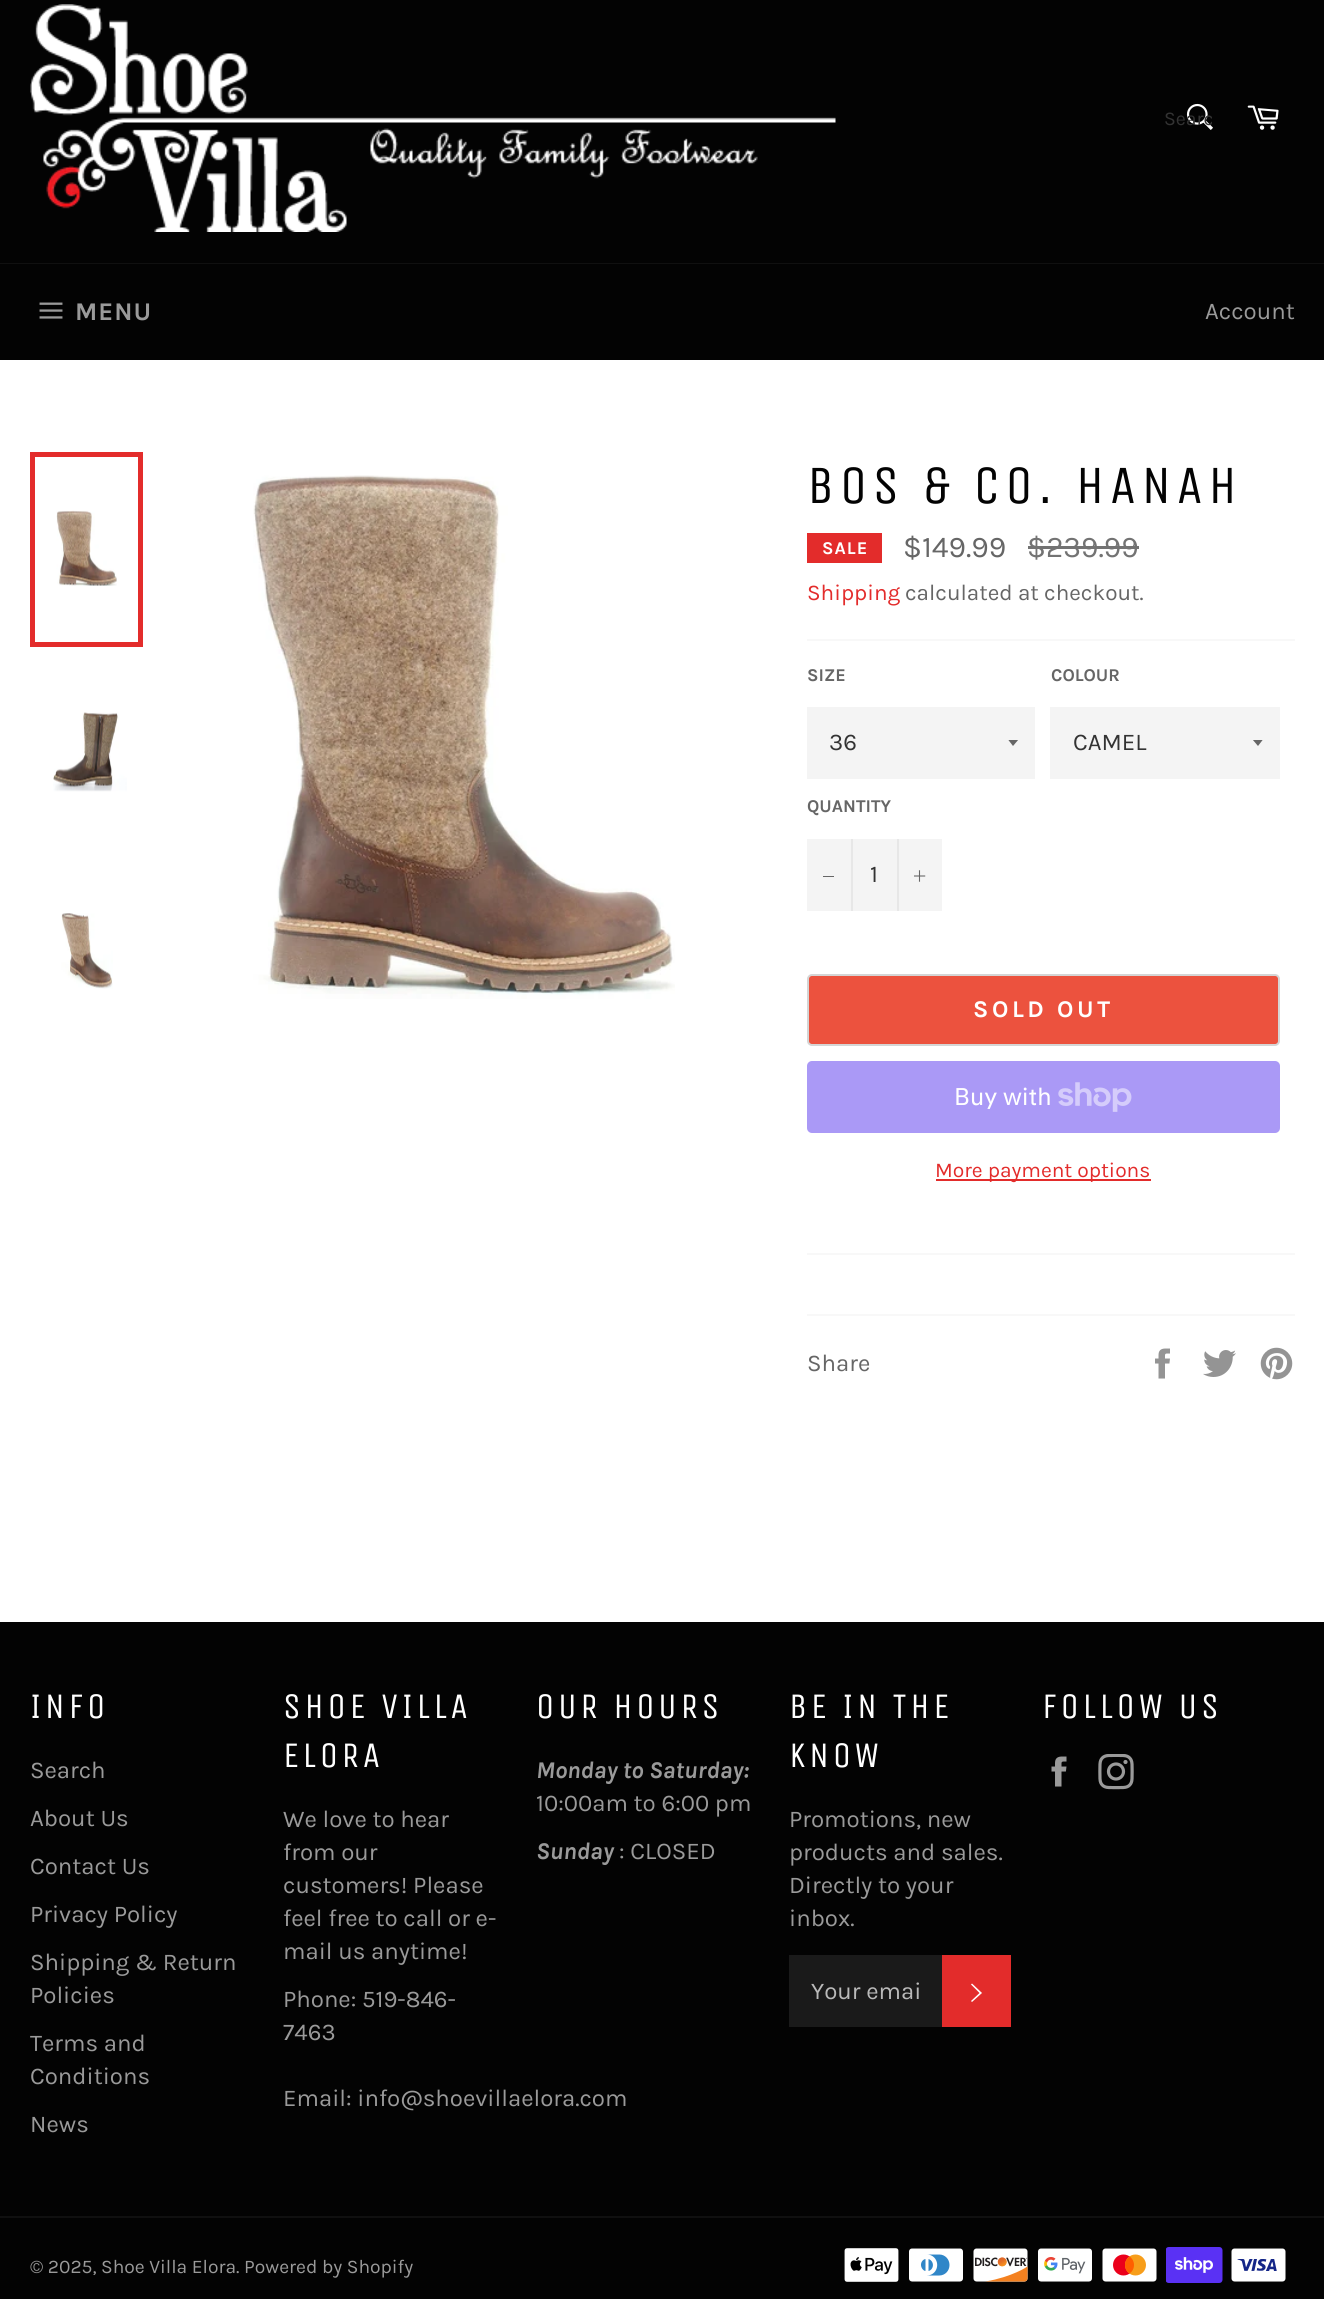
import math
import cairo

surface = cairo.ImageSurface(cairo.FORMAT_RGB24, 1324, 2299)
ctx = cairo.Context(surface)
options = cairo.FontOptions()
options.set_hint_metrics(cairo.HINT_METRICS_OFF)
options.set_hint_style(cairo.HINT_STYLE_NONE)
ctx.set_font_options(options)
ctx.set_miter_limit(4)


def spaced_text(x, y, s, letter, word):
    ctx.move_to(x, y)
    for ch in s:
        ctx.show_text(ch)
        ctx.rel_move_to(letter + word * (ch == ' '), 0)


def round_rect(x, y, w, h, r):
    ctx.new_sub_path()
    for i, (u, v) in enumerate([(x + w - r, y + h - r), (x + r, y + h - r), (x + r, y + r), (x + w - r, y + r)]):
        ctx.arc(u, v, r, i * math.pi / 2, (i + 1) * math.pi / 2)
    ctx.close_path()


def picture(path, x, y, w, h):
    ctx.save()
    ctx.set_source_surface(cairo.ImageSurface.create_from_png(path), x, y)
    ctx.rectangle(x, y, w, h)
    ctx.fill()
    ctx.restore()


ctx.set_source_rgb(0.012, 0.012, 0.012)
ctx.paint()
picture("img1.png", 30, 4, 806, 228)
picture("img2.png", 1186, 103, 27, 27)
ctx.save()
ctx.rectangle(1164, 108, 48, 23)
ctx.clip()
ctx.select_font_face("Karla")
ctx.set_font_size(19.5)
ctx.set_source_rgb(0.2, 0.2, 0.2)
ctx.move_to(1164, 125)
ctx.show_text("Searc")
ctx.restore()
picture("img3.png", 1247, 105, 32, 25)
ctx.set_source_rgb(0.063, 0.063, 0.063)
ctx.rectangle(0, 263, 1324, 1)
ctx.fill()
picture("img4.png", 39, 302, 24, 17)
ctx.select_font_face("Karla", cairo.FONT_SLANT_NORMAL, cairo.FONT_WEIGHT_BOLD)
ctx.set_font_size(25.5)
ctx.set_source_rgb(0.604, 0.604, 0.604)
spaced_text(75, 320, "MENU", 1, 0)
ctx.select_font_face("Karla")
ctx.set_font_size(24)
ctx.move_to(1205, 319)
ctx.show_text("Account")
ctx.set_source_rgb(1, 1, 1)
ctx.rectangle(0, 360, 1324, 1262)
ctx.fill()
picture("img5.png", 56, 510, 61, 76)
ctx.rectangle(32.5, 454.5, 108, 190)
ctx.set_source_rgb(0.89, 0.173, 0.169)
ctx.set_line_width(5)
ctx.stroke()
picture("img6.png", 53, 712, 74, 80)
picture("img7.png", 61, 913, 52, 76)
picture("img8.png", 253, 475, 422, 524)
ctx.select_font_face("Unica One")
ctx.set_font_size(54)
ctx.set_source_rgb(0.012, 0.012, 0.012)
spaced_text(807, 503, "BOS & CO. HANAH", 5.4, 0)
ctx.set_source_rgb(0.89, 0.173, 0.169)
ctx.rectangle(807, 533, 75, 30)
ctx.fill()
ctx.select_font_face("Karla", cairo.FONT_SLANT_NORMAL, cairo.FONT_WEIGHT_BOLD)
ctx.set_font_size(18)
ctx.set_source_rgb(1, 1, 1)
spaced_text(822, 554, "SALE", 1, 0)
ctx.select_font_face("Karla")
ctx.set_font_size(30)
ctx.set_source_rgb(0.4, 0.4, 0.4)
ctx.move_to(903, 557)
ctx.show_text("$149.99")
ctx.set_source_rgb(0.451, 0.451, 0.451)
ctx.move_to(1027, 557)
ctx.show_text("$239.99")
ctx.rectangle(1028, 546, 111, 3)
ctx.fill()
ctx.set_font_size(22.5)
ctx.set_source_rgb(0.89, 0.173, 0.169)
ctx.move_to(807, 600)
ctx.show_text("Shipping")
ctx.set_source_rgb(0.4, 0.4, 0.4)
ctx.move_to(905, 600)
ctx.show_text("calculated at checkout.")
ctx.set_source_rgb(0.969, 0.969, 0.969)
ctx.rectangle(807, 639, 488, 2)
ctx.fill()
ctx.select_font_face("Karla", cairo.FONT_SLANT_NORMAL, cairo.FONT_WEIGHT_BOLD)
ctx.set_font_size(18)
ctx.set_source_rgb(0.4, 0.4, 0.4)
ctx.move_to(807, 681)
ctx.show_text("SIZE")
ctx.set_source_rgb(0.957, 0.957, 0.957)
ctx.rectangle(807, 707, 228, 72)
ctx.fill()
ctx.save()
ctx.rectangle(1008, 740, 12, 7)
ctx.clip()
ctx.set_source_rgb(0.4, 0.4, 0.4)
ctx.new_path()
ctx.move_to(1008, 739.5)
ctx.line_to(1013, 746)
ctx.line_to(1018.5, 739.5)
ctx.close_path()
ctx.fill()
ctx.restore()
ctx.select_font_face("Karla")
ctx.set_font_size(24)
ctx.set_source_rgb(0.2, 0.2, 0.2)
ctx.move_to(829, 750)
ctx.show_text("36")
ctx.select_font_face("Karla", cairo.FONT_SLANT_NORMAL, cairo.FONT_WEIGHT_BOLD)
ctx.set_font_size(18)
ctx.set_source_rgb(0.4, 0.4, 0.4)
ctx.move_to(1051, 681)
ctx.show_text("COLOUR")
ctx.set_source_rgb(0.957, 0.957, 0.957)
ctx.rectangle(1050, 707, 230, 72)
ctx.fill()
ctx.save()
ctx.rectangle(1253, 740, 12, 7)
ctx.clip()
ctx.set_source_rgb(0.4, 0.4, 0.4)
ctx.new_path()
ctx.move_to(1252.5, 739.5)
ctx.line_to(1258, 746)
ctx.line_to(1263, 739.5)
ctx.close_path()
ctx.fill()
ctx.restore()
ctx.select_font_face("Karla")
ctx.set_font_size(24)
ctx.set_source_rgb(0.2, 0.2, 0.2)
ctx.move_to(1073, 750)
ctx.show_text("CAMEL")
ctx.select_font_face("Karla", cairo.FONT_SLANT_NORMAL, cairo.FONT_WEIGHT_BOLD)
ctx.set_font_size(18)
ctx.set_source_rgb(0.4, 0.4, 0.4)
ctx.move_to(807, 812)
ctx.show_text("QUANTITY")
ctx.set_source_rgb(0.957, 0.957, 0.957)
ctx.rectangle(807, 839, 135, 72)
ctx.fill()
ctx.set_source_rgb(0.906, 0.906, 0.906)
ctx.rectangle(851, 839, 2, 72)
ctx.fill()
ctx.set_source_rgb(0.4, 0.4, 0.4)
ctx.rectangle(823, 876, 11, 1)
ctx.fill()
ctx.select_font_face("Karla")
ctx.set_font_size(24)
ctx.set_source_rgb(0.2, 0.2, 0.2)
ctx.move_to(870, 882)
ctx.show_text("1")
ctx.set_source_rgb(0.906, 0.906, 0.906)
ctx.rectangle(897, 839, 2, 72)
ctx.fill()
picture("img9.png", 914, 870, 12, 12)
ctx.set_source_rgb(0.925, 0.322, 0.243)
round_rect(808, 975, 471, 70, 4)
ctx.fill_preserve()
ctx.set_source_rgb(0.835, 0.835, 0.835)
ctx.set_line_width(2)
ctx.stroke()
ctx.select_font_face("Karla", cairo.FONT_SLANT_NORMAL, cairo.FONT_WEIGHT_BOLD)
ctx.set_source_rgb(1, 1, 1)
spaced_text(973, 1017, "SOLD OUT", 3.6, 0)
ctx.set_source_rgb(0.667, 0.6, 0.961)
round_rect(807, 1061, 473, 72, 5)
ctx.fill()
ctx.select_font_face("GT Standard")
ctx.set_source_rgb(1, 1, 1)
ctx.move_to(954, 1105)
ctx.show_text("Buy with")
picture("img10.png", 1058, 1082, 74, 30)
ctx.set_source_rgb(0.89, 0.173, 0.169)
ctx.rectangle(936, 1179, 215, 2)
ctx.fill()
ctx.select_font_face("Karla")
ctx.set_font_size(21)
ctx.move_to(935, 1177)
ctx.show_text("More payment options")
ctx.set_source_rgb(0.969, 0.969, 0.969)
ctx.rectangle(807, 1253, 488, 2)
ctx.fill()
ctx.rectangle(807, 1314, 488, 2)
ctx.fill()
ctx.set_font_size(24)
ctx.set_source_rgb(0.4, 0.4, 0.4)
ctx.move_to(807, 1371)
ctx.show_text("Share")
picture("img11.png", 1155, 1348, 15, 31)
picture("img12.png", 1203, 1350, 33, 27)
picture("img13.png", 1260, 1347, 33, 33)
ctx.select_font_face("Unica One")
ctx.set_font_size(36)
ctx.set_source_rgb(1, 1, 1)
spaced_text(30, 1718, "INFO", 3.6, 0)
ctx.select_font_face("Karla")
ctx.set_font_size(24)
ctx.set_source_rgb(0.604, 0.604, 0.604)
ctx.move_to(30, 1778)
ctx.show_text("Search")
ctx.move_to(30, 1826)
ctx.show_text("About Us")
ctx.move_to(30, 1874)
ctx.show_text("Contact Us")
ctx.move_to(30, 1922)
ctx.show_text("Privacy Policy")
ctx.move_to(30, 1970)
ctx.show_text("Shipping & Return")
ctx.move_to(30, 2003)
ctx.show_text("Policies")
ctx.move_to(30, 2051)
ctx.show_text("Terms and")
ctx.move_to(30, 2084)
ctx.show_text("Conditions")
ctx.move_to(30, 2132)
ctx.show_text("News")
ctx.select_font_face("Unica One")
ctx.set_font_size(36)
ctx.set_source_rgb(1, 1, 1)
spaced_text(283, 1718, "SHOE VILLA", 3.6, 0)
spaced_text(283, 1767, "ELORA", 3.6, 0)
ctx.select_font_face("Karla")
ctx.set_font_size(24)
ctx.set_source_rgb(0.604, 0.604, 0.604)
ctx.move_to(283, 1827)
ctx.show_text("We love to hear")
ctx.move_to(283, 1860)
ctx.show_text("from our")
ctx.move_to(283, 1893)
ctx.show_text("customers! Please")
ctx.move_to(283, 1926)
ctx.show_text("feel free to call or e-")
ctx.move_to(283, 1959)
ctx.show_text("mail us anytime!")
ctx.move_to(283, 2007)
ctx.show_text("Phone: 519-846-")
ctx.move_to(283, 2040)
ctx.show_text("7463")
ctx.move_to(283, 2106)
ctx.show_text("Email: info@shoevillaelora.com")
ctx.select_font_face("Unica One")
ctx.set_font_size(36)
ctx.set_source_rgb(1, 1, 1)
spaced_text(536, 1718, "OUR HOURS", 3.6, 0)
ctx.select_font_face("Karla", cairo.FONT_SLANT_ITALIC, cairo.FONT_WEIGHT_BOLD)
ctx.set_font_size(24)
ctx.set_source_rgb(0.604, 0.604, 0.604)
ctx.move_to(536, 1778)
ctx.show_text("Monday to Saturday:")
ctx.select_font_face("Karla")
ctx.move_to(536, 1811)
ctx.show_text("10:00am to 6:00 pm")
ctx.select_font_face("Karla", cairo.FONT_SLANT_ITALIC, cairo.FONT_WEIGHT_BOLD)
ctx.move_to(536, 1859)
ctx.show_text("Sunday")
ctx.select_font_face("Karla")
ctx.move_to(619, 1859)
ctx.show_text(": CLOSED")
ctx.select_font_face("Unica One")
ctx.set_font_size(36)
ctx.set_source_rgb(1, 1, 1)
spaced_text(789, 1718, "BE IN THE", 3.6, 0)
spaced_text(789, 1767, "KNOW", 3.6, 0)
ctx.select_font_face("Karla")
ctx.set_font_size(24)
ctx.set_source_rgb(0.604, 0.604, 0.604)
ctx.move_to(789, 1827)
ctx.show_text("Promotions, new")
ctx.move_to(789, 1860)
ctx.show_text("products and sales.")
ctx.move_to(789, 1893)
ctx.show_text("Directly to your")
ctx.move_to(789, 1926)
ctx.show_text("inbox.")
ctx.set_source_rgb(0.102, 0.102, 0.102)
ctx.rectangle(789, 1955, 153, 72)
ctx.fill()
ctx.set_source_rgb(0.729, 0.729, 0.729)
ctx.move_to(811, 1999)
ctx.show_text("Your emai")
ctx.set_source_rgb(0.89, 0.173, 0.169)
ctx.rectangle(942, 1955, 69, 72)
ctx.fill()
ctx.set_source_rgb(1, 1, 1)
ctx.new_path()
ctx.move_to(971, 1984.5)
ctx.line_to(972, 1983.5)
ctx.line_to(982, 1993)
ctx.line_to(972, 2002)
ctx.line_to(971, 2001)
ctx.line_to(979.5, 1993)
ctx.close_path()
ctx.fill()
ctx.select_font_face("Unica One")
ctx.set_font_size(36)
spaced_text(1042, 1718, "FOLLOW US", 3.6, 0)
picture("img14.png", 1051, 1756, 16, 31)
picture("img15.png", 1098, 1754, 36, 36)
ctx.set_source_rgb(0.063, 0.063, 0.063)
ctx.rectangle(0, 2216, 1324, 2)
ctx.fill()
ctx.select_font_face("Karla")
ctx.set_font_size(19.25)
ctx.set_source_rgb(0.604, 0.604, 0.604)
ctx.move_to(30, 2273)
ctx.show_text("© 2025, Shoe Villa Elora. Powered by Shopify")
picture("img16.png", 844, 2248, 55, 34)
picture("img17.png", 909, 2248, 54, 34)
picture("img18.png", 973, 2248, 55, 34)
picture("img19.png", 1038, 2248, 54, 34)
picture("img20.png", 1102, 2248, 55, 34)
picture("img21.png", 1166, 2247, 57, 36)
picture("img22.png", 1231, 2248, 55, 34)
surface.write_to_png("page.png")
